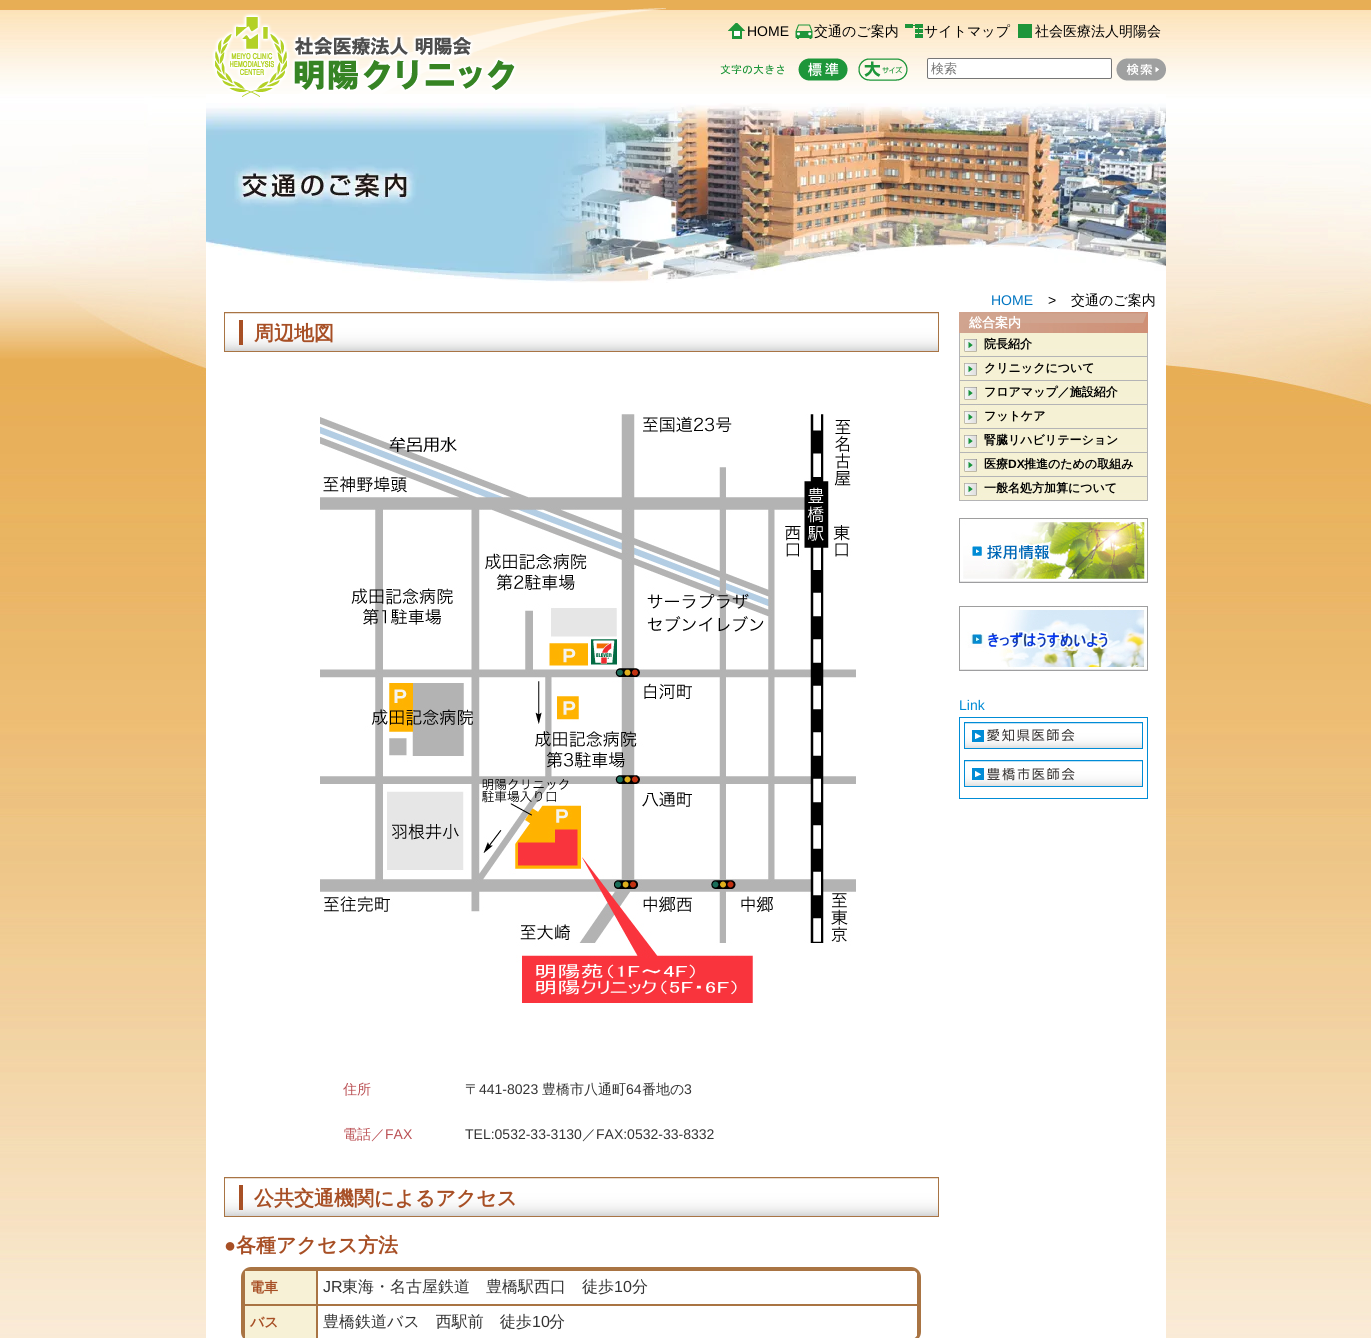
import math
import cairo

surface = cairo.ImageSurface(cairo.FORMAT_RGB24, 1371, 1338)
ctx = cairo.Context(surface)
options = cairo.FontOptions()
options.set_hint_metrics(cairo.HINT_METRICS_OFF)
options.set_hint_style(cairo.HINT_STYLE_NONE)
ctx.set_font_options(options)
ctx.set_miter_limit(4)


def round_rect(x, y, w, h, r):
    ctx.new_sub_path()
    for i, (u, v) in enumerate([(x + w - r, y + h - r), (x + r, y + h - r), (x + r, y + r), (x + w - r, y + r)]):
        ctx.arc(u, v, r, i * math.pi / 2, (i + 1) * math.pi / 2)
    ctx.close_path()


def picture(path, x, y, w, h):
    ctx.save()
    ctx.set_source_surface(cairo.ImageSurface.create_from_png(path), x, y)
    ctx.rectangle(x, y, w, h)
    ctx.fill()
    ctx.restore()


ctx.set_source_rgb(1, 1, 1)
ctx.paint()
picture("img1.png", 0, 0, 1371, 1338)
ctx.set_source_rgb(1, 1, 1)
ctx.rectangle(206, 94, 960, 1244)
ctx.fill()
picture("img2.png", 206, 0, 960, 94)
picture("img3.png", 212, 8, 454, 89)
picture("img4.png", 728, 23, 17, 16)
ctx.select_font_face("Liberation Sans")
ctx.set_font_size(14)
ctx.set_source_rgb(0, 0, 0)
ctx.move_to(747, 36)
ctx.show_text("HOME")
picture("img5.png", 795, 24, 18, 15)
ctx.select_font_face("WenQuanYi Zen Hei Medium")
ctx.move_to(814, 36)
ctx.show_text("交通のご案内")
picture("img6.png", 905, 24, 18, 14)
ctx.move_to(924, 36)
ctx.show_text("サイトマップ")
ctx.move_to(1035, 36)
ctx.show_text("社会医療法人明陽会")
ctx.set_source_rgb(0.118, 0.588, 0.227)
ctx.rectangle(1018, 24, 14, 14)
ctx.fill()
picture("img7.png", 720, 64, 64, 11)
picture("img8.png", 798, 58, 50, 23)
picture("img9.png", 858, 58, 50, 23)
ctx.set_source_rgb(1, 1, 1)
round_rect(927.5, 58.5, 184, 20, 1.5)
ctx.fill_preserve()
ctx.set_source_rgb(0.463, 0.463, 0.463)
ctx.set_line_width(1)
ctx.stroke()
ctx.set_font_size(13)
ctx.set_source_rgb(0.459, 0.459, 0.459)
ctx.move_to(931, 73)
ctx.show_text("検索")
picture("img10.png", 1116, 58, 50, 23)
picture("img11.png", 206, 103, 960, 180)
ctx.select_font_face("Liberation Sans")
ctx.set_font_size(14)
ctx.set_source_rgb(0, 0.459, 0.761)
ctx.move_to(991, 305)
ctx.show_text("HOME")
ctx.set_source_rgb(0, 0, 0)
ctx.move_to(1048, 305)
ctx.show_text(">")
ctx.select_font_face("WenQuanYi Zen Hei Medium")
ctx.move_to(1071, 305)
ctx.show_text("交通のご案内")
picture("img12.png", 224, 312, 715, 40)
ctx.select_font_face("WenQuanYi Zen Hei", cairo.FONT_SLANT_NORMAL, cairo.FONT_WEIGHT_BOLD)
ctx.set_font_size(20)
ctx.set_source_rgb(0.655, 0.31, 0.145)
ctx.move_to(254, 340)
ctx.show_text("周辺地図")
picture("img13.png", 320, 414, 536, 589)
ctx.select_font_face("WenQuanYi Zen Hei Medium")
ctx.set_font_size(14)
ctx.set_source_rgb(0.729, 0.314, 0.329)
ctx.move_to(343, 1094)
ctx.show_text("住所")
ctx.set_source_rgb(0.2, 0.2, 0.2)
ctx.move_to(465, 1094)
ctx.show_text("〒")
ctx.select_font_face("Liberation Sans")
ctx.move_to(479, 1094)
ctx.show_text("441-8023")
ctx.select_font_face("WenQuanYi Zen Hei Medium")
ctx.move_to(542, 1094)
ctx.show_text("豊橋市八通町")
ctx.select_font_face("Liberation Sans")
ctx.move_to(626, 1094)
ctx.show_text("64")
ctx.select_font_face("WenQuanYi Zen Hei Medium")
ctx.move_to(642, 1094)
ctx.show_text("番地の")
ctx.select_font_face("Liberation Sans")
ctx.move_to(684, 1094)
ctx.show_text("3")
ctx.select_font_face("WenQuanYi Zen Hei Medium")
ctx.set_source_rgb(0.729, 0.314, 0.329)
ctx.move_to(343, 1139)
ctx.show_text("電話／")
ctx.select_font_face("Liberation Sans")
ctx.move_to(385, 1139)
ctx.show_text("FAX")
ctx.set_source_rgb(0.2, 0.2, 0.2)
ctx.move_to(465, 1139)
ctx.show_text("TEL:0532-33-3130")
ctx.select_font_face("WenQuanYi Zen Hei Medium")
ctx.move_to(582, 1139)
ctx.show_text("／")
ctx.select_font_face("Liberation Sans")
ctx.move_to(596, 1139)
ctx.show_text("FAX:0532-33-8332")
picture("img12.png", 224, 1177, 715, 40)
ctx.select_font_face("WenQuanYi Zen Hei", cairo.FONT_SLANT_NORMAL, cairo.FONT_WEIGHT_BOLD)
ctx.set_font_size(20)
ctx.set_source_rgb(0.655, 0.31, 0.145)
ctx.move_to(254, 1205)
ctx.show_text("公共交通機関によるアクセス")
ctx.select_font_face("Liberation Sans", cairo.FONT_SLANT_NORMAL, cairo.FONT_WEIGHT_BOLD)
ctx.move_to(224, 1252)
ctx.show_text("●")
ctx.select_font_face("WenQuanYi Zen Hei", cairo.FONT_SLANT_NORMAL, cairo.FONT_WEIGHT_BOLD)
ctx.move_to(236, 1252)
ctx.show_text("各種アクセス方法")
round_rect(242.5, 1268.5, 677, 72, 8.5)
ctx.set_source_rgb(0.663, 0.455, 0.263)
ctx.set_line_width(3)
ctx.stroke()
ctx.set_source_rgb(0.965, 0.945, 0.839)
ctx.rectangle(244.5, 1270.5, 72, 34)
ctx.fill_preserve()
ctx.set_source_rgb(0.663, 0.455, 0.263)
ctx.set_line_width(1)
ctx.stroke()
ctx.set_font_size(14)
ctx.set_source_rgb(0.655, 0.31, 0.145)
ctx.move_to(250, 1292)
ctx.show_text("電車")
ctx.rectangle(317.5, 1270.5, 600, 34)
ctx.set_source_rgb(0.663, 0.455, 0.263)
ctx.stroke()
ctx.select_font_face("Liberation Sans")
ctx.set_font_size(16)
ctx.set_source_rgb(0.2, 0.2, 0.2)
ctx.move_to(323, 1292)
ctx.show_text("JR")
ctx.select_font_face("WenQuanYi Zen Hei Medium")
ctx.move_to(342, 1292)
ctx.show_text("東海・名古屋鉄道　豊橋駅西口　徒歩")
ctx.select_font_face("Liberation Sans")
ctx.move_to(614, 1292)
ctx.show_text("10")
ctx.select_font_face("WenQuanYi Zen Hei Medium")
ctx.move_to(632, 1292)
ctx.show_text("分")
ctx.set_source_rgb(0.965, 0.945, 0.839)
ctx.rectangle(244.5, 1305.5, 72, 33)
ctx.fill_preserve()
ctx.set_source_rgb(0.663, 0.455, 0.263)
ctx.stroke()
ctx.select_font_face("WenQuanYi Zen Hei", cairo.FONT_SLANT_NORMAL, cairo.FONT_WEIGHT_BOLD)
ctx.set_font_size(14)
ctx.set_source_rgb(0.655, 0.31, 0.145)
ctx.move_to(250, 1327)
ctx.show_text("バス")
ctx.rectangle(317.5, 1305.5, 600, 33)
ctx.set_source_rgb(0.663, 0.455, 0.263)
ctx.stroke()
ctx.select_font_face("WenQuanYi Zen Hei Medium")
ctx.set_font_size(16)
ctx.set_source_rgb(0.2, 0.2, 0.2)
ctx.move_to(323, 1327)
ctx.show_text("豊橋鉄道バス　西駅前　徒歩")
ctx.select_font_face("Liberation Sans")
ctx.move_to(532, 1327)
ctx.show_text("10")
ctx.select_font_face("WenQuanYi Zen Hei Medium")
ctx.move_to(549, 1327)
ctx.show_text("分")
picture("img14.png", 959, 312, 189, 21)
ctx.select_font_face("WenQuanYi Zen Hei", cairo.FONT_SLANT_NORMAL, cairo.FONT_WEIGHT_BOLD)
ctx.set_font_size(13)
ctx.set_source_rgb(1, 1, 1)
ctx.move_to(969, 327)
ctx.show_text("総合案内")
picture("img15.png", 959, 333, 189, 24)
ctx.set_font_size(12)
ctx.set_source_rgb(0, 0, 0)
ctx.move_to(984, 348)
ctx.show_text("院長紹介")
picture("img15.png", 959, 357, 189, 24)
ctx.move_to(984, 372)
ctx.show_text("クリニックについて")
picture("img15.png", 959, 381, 189, 24)
ctx.move_to(984, 396)
ctx.show_text("フロアマップ／施設紹介")
picture("img15.png", 959, 405, 189, 24)
ctx.move_to(984, 420)
ctx.show_text("フットケア")
picture("img15.png", 959, 429, 189, 24)
ctx.move_to(984, 444)
ctx.show_text("腎臓リハビリテーション")
picture("img15.png", 959, 453, 189, 24)
ctx.move_to(984, 468)
ctx.show_text("医療")
ctx.select_font_face("Liberation Sans", cairo.FONT_SLANT_NORMAL, cairo.FONT_WEIGHT_BOLD)
ctx.move_to(1008, 468)
ctx.show_text("DX")
ctx.select_font_face("WenQuanYi Zen Hei", cairo.FONT_SLANT_NORMAL, cairo.FONT_WEIGHT_BOLD)
ctx.move_to(1024, 468)
ctx.show_text("推進のための取組み")
picture("img15.png", 959, 477, 189, 24)
ctx.move_to(984, 492)
ctx.show_text("一般名処方加算について")
picture("img16.png", 959, 518, 189, 65)
picture("img17.png", 959, 606, 189, 65)
ctx.select_font_face("Liberation Sans")
ctx.set_font_size(14)
ctx.set_source_rgb(0, 0.545, 0.835)
ctx.move_to(959, 710)
ctx.show_text("Link")
ctx.rectangle(959.5, 717.5, 188, 81)
ctx.set_source_rgb(0, 0.549, 0.839)
ctx.stroke()
picture("img18.png", 964, 722, 179, 27)
picture("img19.png", 964, 760, 179, 27)
surface.write_to_png("page.png")
